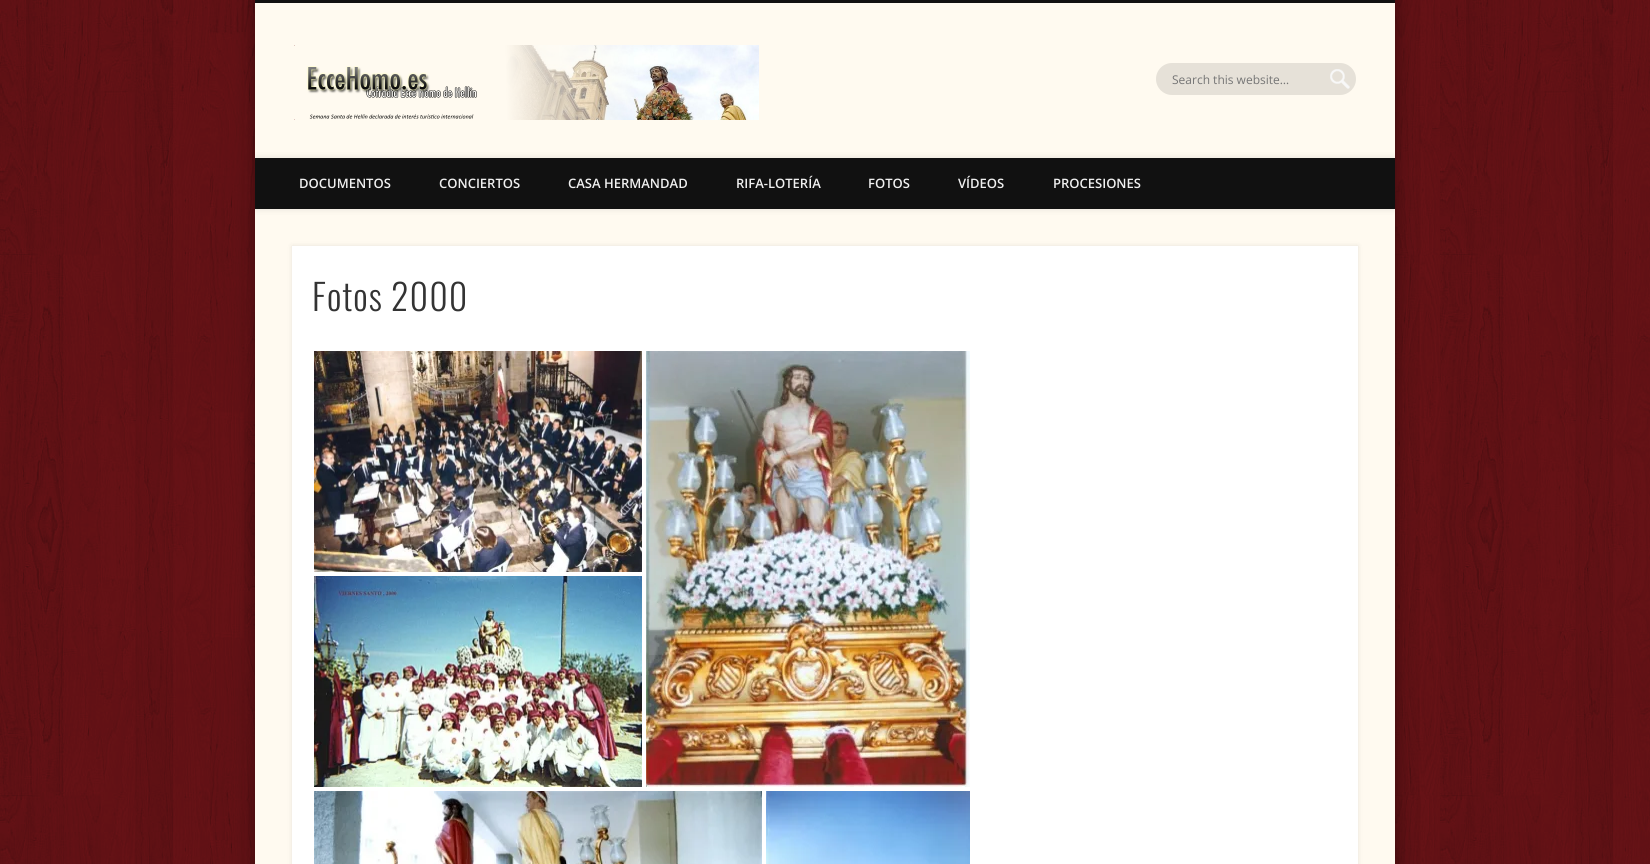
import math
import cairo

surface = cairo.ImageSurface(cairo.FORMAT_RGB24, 1650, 864)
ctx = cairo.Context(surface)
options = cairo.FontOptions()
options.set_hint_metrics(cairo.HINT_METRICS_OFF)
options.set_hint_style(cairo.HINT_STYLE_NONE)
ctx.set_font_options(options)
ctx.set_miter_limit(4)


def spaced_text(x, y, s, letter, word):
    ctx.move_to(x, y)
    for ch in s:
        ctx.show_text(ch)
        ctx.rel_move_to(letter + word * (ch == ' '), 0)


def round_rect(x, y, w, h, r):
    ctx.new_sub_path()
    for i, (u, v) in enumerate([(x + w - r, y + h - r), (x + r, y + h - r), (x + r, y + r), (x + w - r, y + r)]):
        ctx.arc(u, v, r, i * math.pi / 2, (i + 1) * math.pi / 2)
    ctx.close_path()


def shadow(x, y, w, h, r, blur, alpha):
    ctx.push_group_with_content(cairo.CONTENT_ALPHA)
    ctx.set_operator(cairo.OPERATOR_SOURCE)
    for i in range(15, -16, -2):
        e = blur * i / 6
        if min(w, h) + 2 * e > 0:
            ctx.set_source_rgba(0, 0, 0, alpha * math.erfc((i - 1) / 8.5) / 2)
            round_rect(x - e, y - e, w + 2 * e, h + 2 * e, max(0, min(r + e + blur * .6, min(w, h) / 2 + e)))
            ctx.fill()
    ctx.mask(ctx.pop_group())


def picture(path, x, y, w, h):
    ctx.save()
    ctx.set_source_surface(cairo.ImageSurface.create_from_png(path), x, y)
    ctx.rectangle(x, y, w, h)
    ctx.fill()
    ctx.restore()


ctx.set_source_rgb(1, 1, 1)
ctx.paint()
picture("img1.png", 0, 0, 1650, 864)
ctx.set_source_rgb(0, 0, 0)
shadow(255, 0, 1140, 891, 0, 9, 0.4)
ctx.set_source_rgb(1, 0.98, 0.941)
ctx.rectangle(255, 3, 1140, 861)
ctx.fill()
ctx.set_source_rgb(0.067, 0.067, 0.067)
ctx.rectangle(255, 0, 1140, 3)
ctx.fill()
picture("img2.png", 294, 45, 465, 75)
ctx.set_source_rgb(0.902, 0.882, 0.847)
round_rect(1156, 63, 200, 32, 16)
ctx.fill()
picture("img3.png", 1330, 69, 20, 20)
ctx.select_font_face("Open Sans")
ctx.set_font_size(12)
ctx.set_source_rgb(0.459, 0.459, 0.459)
ctx.move_to(1172, 84)
ctx.show_text("Search this website…")
ctx.save()
ctx.rectangle(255, 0, 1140, 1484)
ctx.clip()
ctx.set_source_rgb(0, 0, 0)
shadow(255, 158, 1140, 51, 0, 3.5, 0.1)
ctx.restore()
ctx.set_source_rgb(0.067, 0.067, 0.067)
ctx.rectangle(255, 158, 1140, 51)
ctx.fill()
ctx.select_font_face("Open Sans SemiBold")
ctx.set_font_size(13)
ctx.set_source_rgb(0.941, 0.941, 0.941)
ctx.move_to(299, 188)
ctx.show_text("DOCUMENTOS")
ctx.move_to(439, 188)
ctx.show_text("CONCIERTOS")
ctx.move_to(568, 188)
ctx.show_text("CASA HERMANDAD")
ctx.move_to(736, 188)
ctx.show_text("RIFA-LOTERÍA")
ctx.move_to(868, 188)
ctx.show_text("FOTOS")
ctx.move_to(958, 188)
ctx.show_text("VÍDEOS")
ctx.move_to(1053, 188)
ctx.show_text("PROCESIONES")
ctx.set_source_rgb(0, 0, 0)
shadow(292, 246, 1066, 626, 0, 2.5, 0.1)
ctx.set_source_rgb(1, 1, 1)
ctx.rectangle(292, 246, 1066, 618)
ctx.fill()
ctx.select_font_face("Oswald Light")
ctx.set_font_size(36)
ctx.set_source_rgb(0.2, 0.2, 0.2)
spaced_text(312, 311, "Fotos 2000", 1, 0)
picture("img4.png", 314, 351, 328, 221)
picture("img5.png", 314, 576, 328, 211)
picture("img6.png", 646, 351, 324, 436)
picture("img7.png", 314, 791, 448, 73)
picture("img8.png", 766, 791, 204, 73)
surface.write_to_png("page.png")
